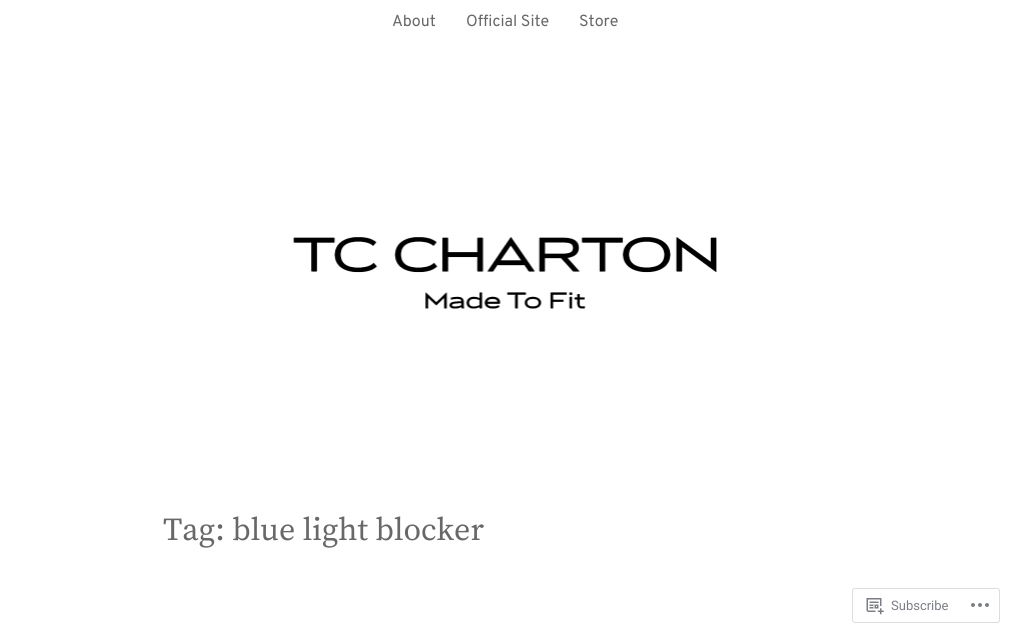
import math
import cairo

surface = cairo.ImageSurface(cairo.FORMAT_RGB24, 1010, 633)
ctx = cairo.Context(surface)
options = cairo.FontOptions()
options.set_hint_metrics(cairo.HINT_METRICS_OFF)
options.set_hint_style(cairo.HINT_STYLE_NONE)
ctx.set_font_options(options)
ctx.set_miter_limit(4)


def round_rect(x, y, w, h, r):
    ctx.new_sub_path()
    for i, (u, v) in enumerate([(x + w - r, y + h - r), (x + r, y + h - r), (x + r, y + r), (x + w - r, y + r)]):
        ctx.arc(u, v, r, i * math.pi / 2, (i + 1) * math.pi / 2)
    ctx.close_path()


def picture(path, x, y, w, h):
    ctx.save()
    ctx.set_source_surface(cairo.ImageSurface.create_from_png(path), x, y)
    ctx.rectangle(x, y, w, h)
    ctx.fill()
    ctx.restore()


ctx.set_source_rgb(1, 1, 1)
ctx.paint()
ctx.select_font_face("Overpass")
ctx.set_font_size(16)
ctx.set_source_rgb(0.408, 0.408, 0.408)
ctx.move_to(392, 26)
ctx.show_text("About")
ctx.move_to(466, 26)
ctx.show_text("Official Site")
ctx.move_to(579, 26)
ctx.show_text("Store")
picture("img1.png", 293, 237, 424, 72)
ctx.select_font_face("Source Serif Pro")
ctx.set_font_size(32)
ctx.move_to(163, 540)
ctx.show_text("Tag: blue light blocker")
round_rect(852.5, 588.5, 147, 34, 2.5)
ctx.set_source_rgb(0.867, 0.867, 0.875)
ctx.set_line_width(1)
ctx.stroke()
picture("img2.png", 866, 598, 18, 17)
ctx.select_font_face("Roboto")
ctx.set_font_size(13)
ctx.set_source_rgb(0.482, 0.498, 0.522)
ctx.move_to(891, 610)
ctx.show_text("Subscribe")
picture("img3.png", 971, 603, 18, 4)
surface.write_to_png("page.png")
